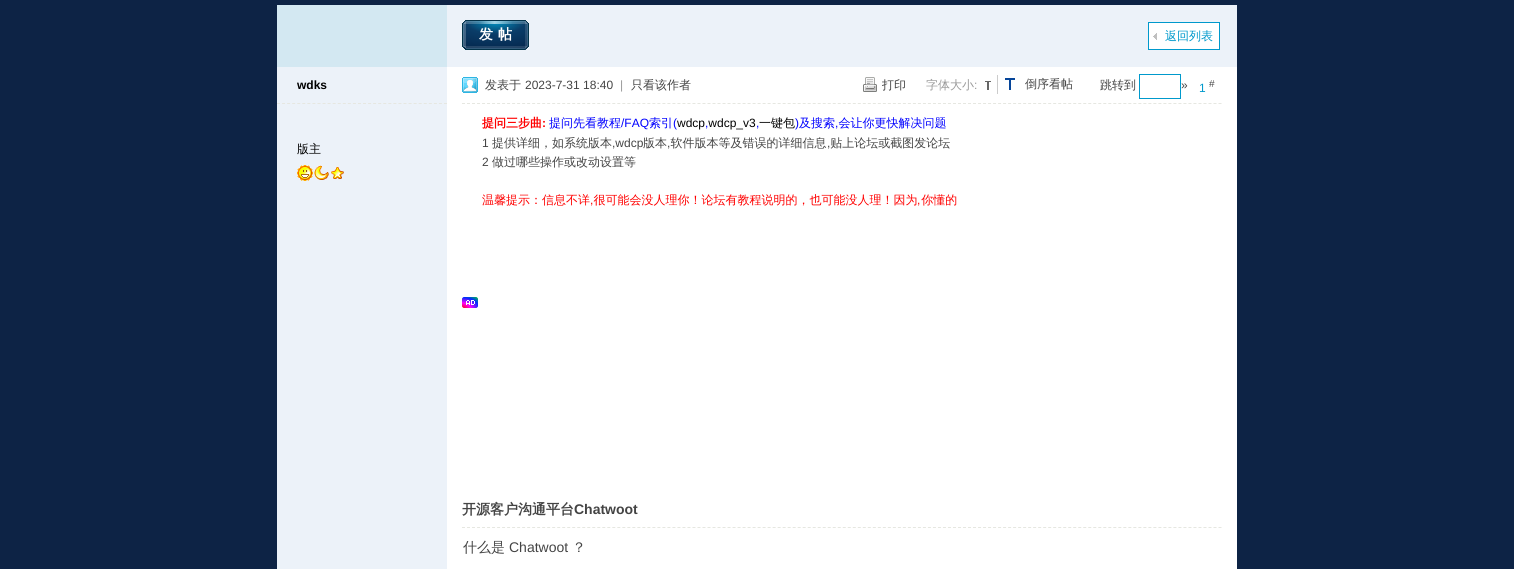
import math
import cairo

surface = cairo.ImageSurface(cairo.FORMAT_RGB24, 1514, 569)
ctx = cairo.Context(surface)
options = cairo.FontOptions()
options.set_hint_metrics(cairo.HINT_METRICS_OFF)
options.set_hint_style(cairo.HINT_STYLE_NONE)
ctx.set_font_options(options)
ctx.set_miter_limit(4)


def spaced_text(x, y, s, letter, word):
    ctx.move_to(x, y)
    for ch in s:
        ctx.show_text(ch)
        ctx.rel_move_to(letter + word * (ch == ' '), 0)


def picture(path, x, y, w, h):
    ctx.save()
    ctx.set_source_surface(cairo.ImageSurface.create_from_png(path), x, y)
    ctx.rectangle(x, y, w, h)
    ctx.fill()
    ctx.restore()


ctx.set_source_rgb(0.051, 0.137, 0.271)
ctx.paint()
ctx.set_source_rgb(1, 1, 1)
ctx.rectangle(447, 67, 790, 502)
ctx.fill()
ctx.set_source_rgb(0.922, 0.949, 0.973)
ctx.rectangle(447, 5, 790, 62)
ctx.fill()
ctx.set_source_rgb(0.827, 0.91, 0.949)
ctx.rectangle(277, 5, 170, 62)
ctx.fill()
picture("img1.png", 462, 20, 67, 30)
ctx.select_font_face("WenQuanYi Zen Hei", cairo.FONT_SLANT_NORMAL, cairo.FONT_WEIGHT_BOLD)
ctx.set_font_size(14)
ctx.set_source_rgb(1, 1, 1)
spaced_text(479, 39, "发帖", 5, 0)
ctx.rectangle(1149, 23, 70, 26)
ctx.fill()
picture("img2.png", 1153, 33, 4, 7)
ctx.rectangle(1148.5, 22.5, 71, 27)
ctx.set_source_rgb(0, 0.6, 0.8)
ctx.set_line_width(1)
ctx.stroke()
ctx.select_font_face("WenQuanYi Zen Hei Medium")
ctx.set_font_size(12)
ctx.move_to(1165, 40)
ctx.show_text("返回列表")
ctx.set_source_rgb(0.922, 0.949, 0.973)
ctx.rectangle(277, 67, 170, 502)
ctx.fill()
ctx.new_path()
ctx.move_to(277, 103.5)
ctx.line_to(447, 103.5)
ctx.set_source_rgb(0.902, 0.906, 0.882)
ctx.set_dash([3, 2.06])
ctx.stroke()
ctx.select_font_face("Liberation Sans", cairo.FONT_SLANT_NORMAL, cairo.FONT_WEIGHT_BOLD)
ctx.set_source_rgb(0, 0, 0)
ctx.move_to(297, 89)
ctx.show_text("wdks")
ctx.select_font_face("WenQuanYi Zen Hei Medium")
ctx.move_to(297, 153)
ctx.show_text("版主")
picture("img3.png", 297, 165, 16, 16)
picture("img4.png", 314, 165, 15, 15)
picture("img5.png", 331, 167, 13, 12)
ctx.new_path()
ctx.move_to(462, 103.5)
ctx.line_to(1222, 103.5)
ctx.set_source_rgb(0.902, 0.906, 0.882)
ctx.set_dash([3, 2.01])
ctx.stroke()
picture("img6.png", 462, 77, 16, 16)
ctx.set_source_rgb(0.267, 0.267, 0.267)
ctx.move_to(485, 89)
ctx.show_text("发表于")
ctx.select_font_face("Liberation Sans")
ctx.move_to(525, 89)
ctx.show_text("2023-7-31 18:40")
ctx.set_source_rgb(0.6, 0.6, 0.6)
ctx.move_to(620, 89)
ctx.show_text("|")
ctx.select_font_face("WenQuanYi Zen Hei Medium")
ctx.set_source_rgb(0.267, 0.267, 0.267)
ctx.move_to(631, 89)
ctx.show_text("只看该作者")
picture("img7.png", 863, 77, 14, 15)
ctx.move_to(882, 89)
ctx.show_text("打印")
ctx.set_source_rgb(0.6, 0.6, 0.6)
ctx.move_to(926, 89)
ctx.show_text("字体大小")
ctx.select_font_face("Liberation Sans")
ctx.move_to(974, 89)
ctx.show_text(":")
picture("img8.png", 985, 75, 13, 19)
picture("img9.png", 1005, 78, 10, 12)
ctx.select_font_face("WenQuanYi Zen Hei Medium")
ctx.set_source_rgb(0.267, 0.267, 0.267)
ctx.move_to(1025, 88)
ctx.show_text("倒序看帖")
ctx.move_to(1100, 89)
ctx.show_text("跳转到")
ctx.rectangle(1139.5, 74.5, 41, 24)
ctx.set_source_rgb(0, 0.6, 0.8)
ctx.set_dash([])
ctx.stroke()
ctx.select_font_face("Liberation Sans")
ctx.set_source_rgb(0.267, 0.267, 0.267)
ctx.move_to(1181, 89)
ctx.show_text("»")
ctx.set_source_rgb(0, 0.6, 0.8)
ctx.move_to(1199, 92)
ctx.show_text("1")
ctx.set_font_size(10)
ctx.set_source_rgb(0.267, 0.267, 0.267)
ctx.move_to(1209, 87)
ctx.show_text("#")
picture("img10.png", 462, 297, 16, 11)
ctx.select_font_face("WenQuanYi Zen Hei", cairo.FONT_SLANT_NORMAL, cairo.FONT_WEIGHT_BOLD)
ctx.set_font_size(12)
ctx.set_source_rgb(1, 0, 0)
ctx.move_to(482, 127)
ctx.show_text("提问三步曲")
ctx.select_font_face("Liberation Sans", cairo.FONT_SLANT_NORMAL, cairo.FONT_WEIGHT_BOLD)
ctx.move_to(542, 127)
ctx.show_text(":")
ctx.select_font_face("WenQuanYi Zen Hei Medium")
ctx.set_source_rgb(0, 0, 1)
ctx.move_to(549, 127)
ctx.show_text("提问先看教程")
ctx.select_font_face("Liberation Sans")
ctx.move_to(621, 127)
ctx.show_text("/FAQ")
ctx.select_font_face("WenQuanYi Zen Hei Medium")
ctx.move_to(649, 127)
ctx.show_text("索引")
ctx.select_font_face("Liberation Sans")
ctx.move_to(673, 127)
ctx.show_text("(")
ctx.set_source_rgb(0, 0, 0)
ctx.move_to(677, 127)
ctx.show_text("wdcp wdcp_v3")
ctx.select_font_face("WenQuanYi Zen Hei Medium")
ctx.move_to(759, 127)
ctx.show_text("一键包")
ctx.select_font_face("Liberation Sans")
ctx.set_source_rgb(0, 0, 1)
ctx.move_to(795, 127)
ctx.show_text(")")
ctx.select_font_face("WenQuanYi Zen Hei Medium")
ctx.move_to(799, 127)
ctx.show_text("及搜索 会让你更快解决问题")
ctx.select_font_face("Liberation Sans")
ctx.move_to(705, 127)
ctx.show_text(",")
ctx.move_to(756, 127)
ctx.show_text(",")
ctx.move_to(835, 127)
ctx.show_text(",")
ctx.set_source_rgb(0.267, 0.267, 0.267)
ctx.move_to(482, 147)
ctx.show_text("1")
ctx.select_font_face("WenQuanYi Zen Hei Medium")
ctx.move_to(492, 147)
ctx.show_text("提供详细，如系统版本")
ctx.select_font_face("Liberation Sans")
ctx.move_to(612, 147)
ctx.show_text(",wdcp")
ctx.select_font_face("WenQuanYi Zen Hei Medium")
ctx.move_to(643, 147)
ctx.show_text("版本 软件版本等及错误的详细信息 贴上论坛或截图发论坛")
ctx.select_font_face("Liberation Sans")
ctx.move_to(667, 147)
ctx.show_text(",")
ctx.move_to(827, 147)
ctx.show_text(",")
ctx.move_to(482, 166)
ctx.show_text("2")
ctx.select_font_face("WenQuanYi Zen Hei Medium")
ctx.move_to(492, 166)
ctx.show_text("做过哪些操作或改动设置等")
ctx.set_source_rgb(1, 0, 0)
ctx.move_to(482, 204)
ctx.show_text("温馨提示：信息不详 很可能会没人理你！论坛有教程说明的，也可能没人理！因为 你懂的")
ctx.select_font_face("Liberation Sans")
ctx.move_to(590, 204)
ctx.show_text(",")
ctx.move_to(917, 204)
ctx.show_text(",")
ctx.new_path()
ctx.move_to(462, 527.5)
ctx.line_to(1222, 527.5)
ctx.set_source_rgb(0.902, 0.906, 0.882)
ctx.set_dash([3, 2.01])
ctx.stroke()
ctx.select_font_face("WenQuanYi Zen Hei", cairo.FONT_SLANT_NORMAL, cairo.FONT_WEIGHT_BOLD)
ctx.set_font_size(14)
ctx.set_source_rgb(0.267, 0.267, 0.267)
ctx.move_to(462, 514)
ctx.show_text("开源客户沟通平台")
ctx.select_font_face("Liberation Sans", cairo.FONT_SLANT_NORMAL, cairo.FONT_WEIGHT_BOLD)
ctx.move_to(574, 514)
ctx.show_text("Chatwoot")
ctx.select_font_face("WenQuanYi Zen Hei Medium")
ctx.move_to(463, 552)
ctx.show_text("什么是")
ctx.select_font_face("Liberation Sans")
ctx.move_to(509, 552)
ctx.show_text("Chatwoot")
ctx.select_font_face("WenQuanYi Zen Hei Medium")
ctx.move_to(572, 552)
ctx.show_text("？")
surface.write_to_png("page.png")
